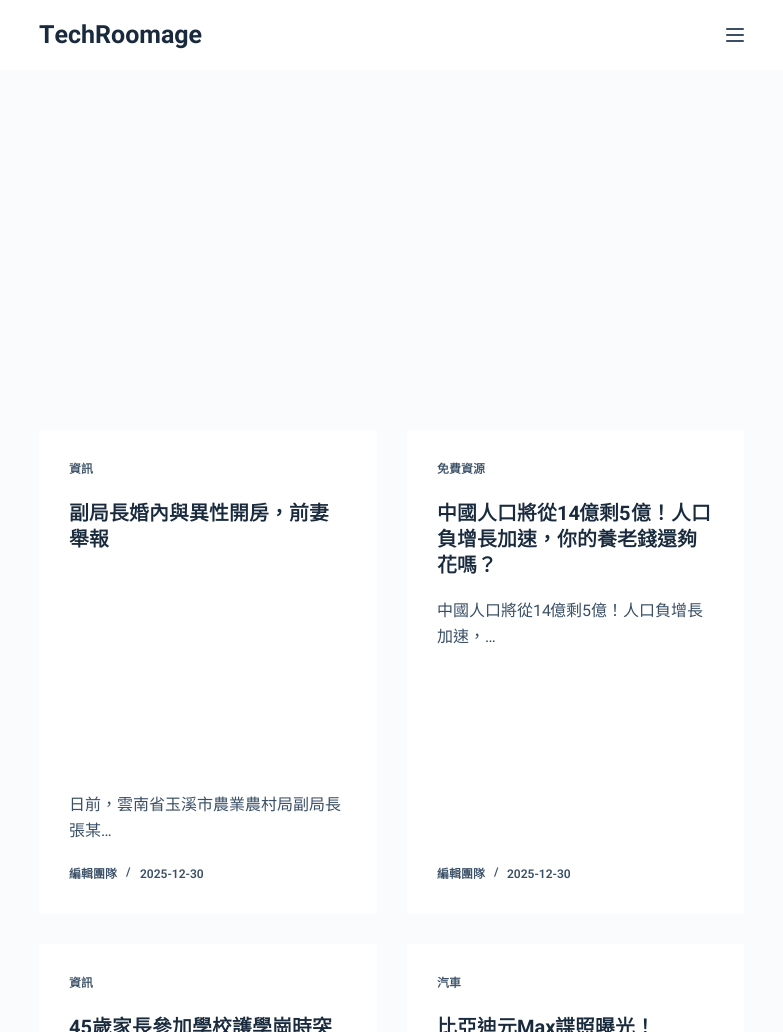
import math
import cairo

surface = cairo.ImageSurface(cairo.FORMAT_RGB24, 783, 1032)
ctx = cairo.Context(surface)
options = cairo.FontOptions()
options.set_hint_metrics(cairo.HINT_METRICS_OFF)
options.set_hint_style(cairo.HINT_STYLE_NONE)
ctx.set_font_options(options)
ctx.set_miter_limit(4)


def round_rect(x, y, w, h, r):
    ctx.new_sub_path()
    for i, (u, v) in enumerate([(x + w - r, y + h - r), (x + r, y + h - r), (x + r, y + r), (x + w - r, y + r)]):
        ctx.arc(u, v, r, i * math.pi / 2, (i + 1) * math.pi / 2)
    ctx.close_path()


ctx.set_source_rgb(0.98, 0.984, 0.988)
ctx.paint()
ctx.set_source_rgb(1, 1, 1)
ctx.rectangle(0, 0, 783, 70)
ctx.fill()
ctx.select_font_face("Roboto", cairo.FONT_SLANT_NORMAL, cairo.FONT_WEIGHT_BOLD)
ctx.set_font_size(25)
ctx.set_source_rgb(0.098, 0.165, 0.239)
ctx.move_to(39, 43)
ctx.show_text("TechRoomage")
ctx.set_source_rgb(0.227, 0.31, 0.4)
round_rect(726, 28, 18, 2, 1)
ctx.fill()
round_rect(726, 34, 18, 2, 1)
ctx.fill()
round_rect(726, 40, 18, 2, 1)
ctx.fill()
ctx.set_source_rgb(1, 1, 1)
ctx.rectangle(39, 430, 338, 484)
ctx.fill()
ctx.select_font_face("Noto Sans CJK TC", cairo.FONT_SLANT_NORMAL, cairo.FONT_WEIGHT_BOLD)
ctx.set_font_size(12)
ctx.set_source_rgb(0.227, 0.31, 0.4)
ctx.move_to(69, 473)
ctx.show_text("資訊")
ctx.set_font_size(20)
ctx.set_source_rgb(0.098, 0.165, 0.239)
ctx.move_to(69, 520)
ctx.show_text("副局長婚內與異性開房，前妻")
ctx.move_to(69, 546)
ctx.show_text("舉報")
ctx.select_font_face("Noto Sans CJK TC")
ctx.set_font_size(16)
ctx.set_source_rgb(0.227, 0.31, 0.4)
ctx.move_to(69, 810)
ctx.show_text("日前，雲南省玉溪市農業農村局副局長")
ctx.move_to(69, 836)
ctx.show_text("張某")
ctx.select_font_face("Roboto")
ctx.move_to(101, 836)
ctx.show_text("…")
ctx.select_font_face("Noto Sans CJK TC", cairo.FONT_SLANT_NORMAL, cairo.FONT_WEIGHT_BOLD)
ctx.set_font_size(12)
ctx.move_to(69, 878)
ctx.show_text("編輯團隊")
ctx.select_font_face("Roboto SemiBold")
ctx.move_to(126, 876)
ctx.show_text("/")
ctx.move_to(140, 878)
ctx.show_text("2025-12-30")
ctx.set_source_rgb(1, 1, 1)
ctx.rectangle(407, 430, 337, 484)
ctx.fill()
ctx.select_font_face("Noto Sans CJK TC", cairo.FONT_SLANT_NORMAL, cairo.FONT_WEIGHT_BOLD)
ctx.set_source_rgb(0.227, 0.31, 0.4)
ctx.move_to(437, 473)
ctx.show_text("免費資源")
ctx.set_font_size(20)
ctx.set_source_rgb(0.098, 0.165, 0.239)
ctx.move_to(437, 520)
ctx.show_text("中國人口將從")
ctx.select_font_face("Roboto", cairo.FONT_SLANT_NORMAL, cairo.FONT_WEIGHT_BOLD)
ctx.move_to(557, 520)
ctx.show_text("14")
ctx.select_font_face("Noto Sans CJK TC", cairo.FONT_SLANT_NORMAL, cairo.FONT_WEIGHT_BOLD)
ctx.move_to(579, 520)
ctx.show_text("億剩")
ctx.select_font_face("Roboto", cairo.FONT_SLANT_NORMAL, cairo.FONT_WEIGHT_BOLD)
ctx.move_to(619, 520)
ctx.show_text("5")
ctx.select_font_face("Noto Sans CJK TC", cairo.FONT_SLANT_NORMAL, cairo.FONT_WEIGHT_BOLD)
ctx.move_to(631, 520)
ctx.show_text("億！人口")
ctx.move_to(437, 546)
ctx.show_text("負增長加速，你的養老錢還夠")
ctx.move_to(437, 572)
ctx.show_text("花嗎？")
ctx.select_font_face("Noto Sans CJK TC")
ctx.set_font_size(16)
ctx.set_source_rgb(0.227, 0.31, 0.4)
ctx.move_to(437, 616)
ctx.show_text("中國人口將從")
ctx.select_font_face("Roboto")
ctx.move_to(533, 616)
ctx.show_text("14")
ctx.select_font_face("Noto Sans CJK TC")
ctx.move_to(550, 616)
ctx.show_text("億剩")
ctx.select_font_face("Roboto")
ctx.move_to(582, 616)
ctx.show_text("5")
ctx.select_font_face("Noto Sans CJK TC")
ctx.move_to(591, 616)
ctx.show_text("億！人口負增長")
ctx.move_to(437, 642)
ctx.show_text("加速，")
ctx.select_font_face("Roboto")
ctx.move_to(485, 642)
ctx.show_text("…")
ctx.select_font_face("Noto Sans CJK TC", cairo.FONT_SLANT_NORMAL, cairo.FONT_WEIGHT_BOLD)
ctx.set_font_size(12)
ctx.move_to(437, 878)
ctx.show_text("編輯團隊")
ctx.select_font_face("Roboto SemiBold")
ctx.move_to(494, 876)
ctx.show_text("/")
ctx.move_to(507, 878)
ctx.show_text("2025-12-30")
ctx.set_source_rgb(1, 1, 1)
ctx.rectangle(39, 944, 338, 88)
ctx.fill()
ctx.select_font_face("Noto Sans CJK TC", cairo.FONT_SLANT_NORMAL, cairo.FONT_WEIGHT_BOLD)
ctx.set_source_rgb(0.227, 0.31, 0.4)
ctx.move_to(69, 987)
ctx.show_text("資訊")
ctx.select_font_face("Roboto", cairo.FONT_SLANT_NORMAL, cairo.FONT_WEIGHT_BOLD)
ctx.set_font_size(20)
ctx.set_source_rgb(0.098, 0.165, 0.239)
ctx.move_to(69, 1034)
ctx.show_text("45")
ctx.select_font_face("Noto Sans CJK TC", cairo.FONT_SLANT_NORMAL, cairo.FONT_WEIGHT_BOLD)
ctx.move_to(92, 1034)
ctx.show_text("歲家長參加學校護學崗時突")
ctx.set_source_rgb(1, 1, 1)
ctx.rectangle(407, 944, 337, 88)
ctx.fill()
ctx.set_font_size(12)
ctx.set_source_rgb(0.227, 0.31, 0.4)
ctx.move_to(437, 987)
ctx.show_text("汽車")
ctx.set_font_size(20)
ctx.set_source_rgb(0.098, 0.165, 0.239)
ctx.move_to(437, 1034)
ctx.show_text("比亞迪元")
ctx.select_font_face("Roboto", cairo.FONT_SLANT_NORMAL, cairo.FONT_WEIGHT_BOLD)
ctx.move_to(517, 1034)
ctx.show_text("Max")
ctx.select_font_face("Noto Sans CJK TC", cairo.FONT_SLANT_NORMAL, cairo.FONT_WEIGHT_BOLD)
ctx.move_to(555, 1034)
ctx.show_text("諜照曝光！")
surface.write_to_png("page.png")
